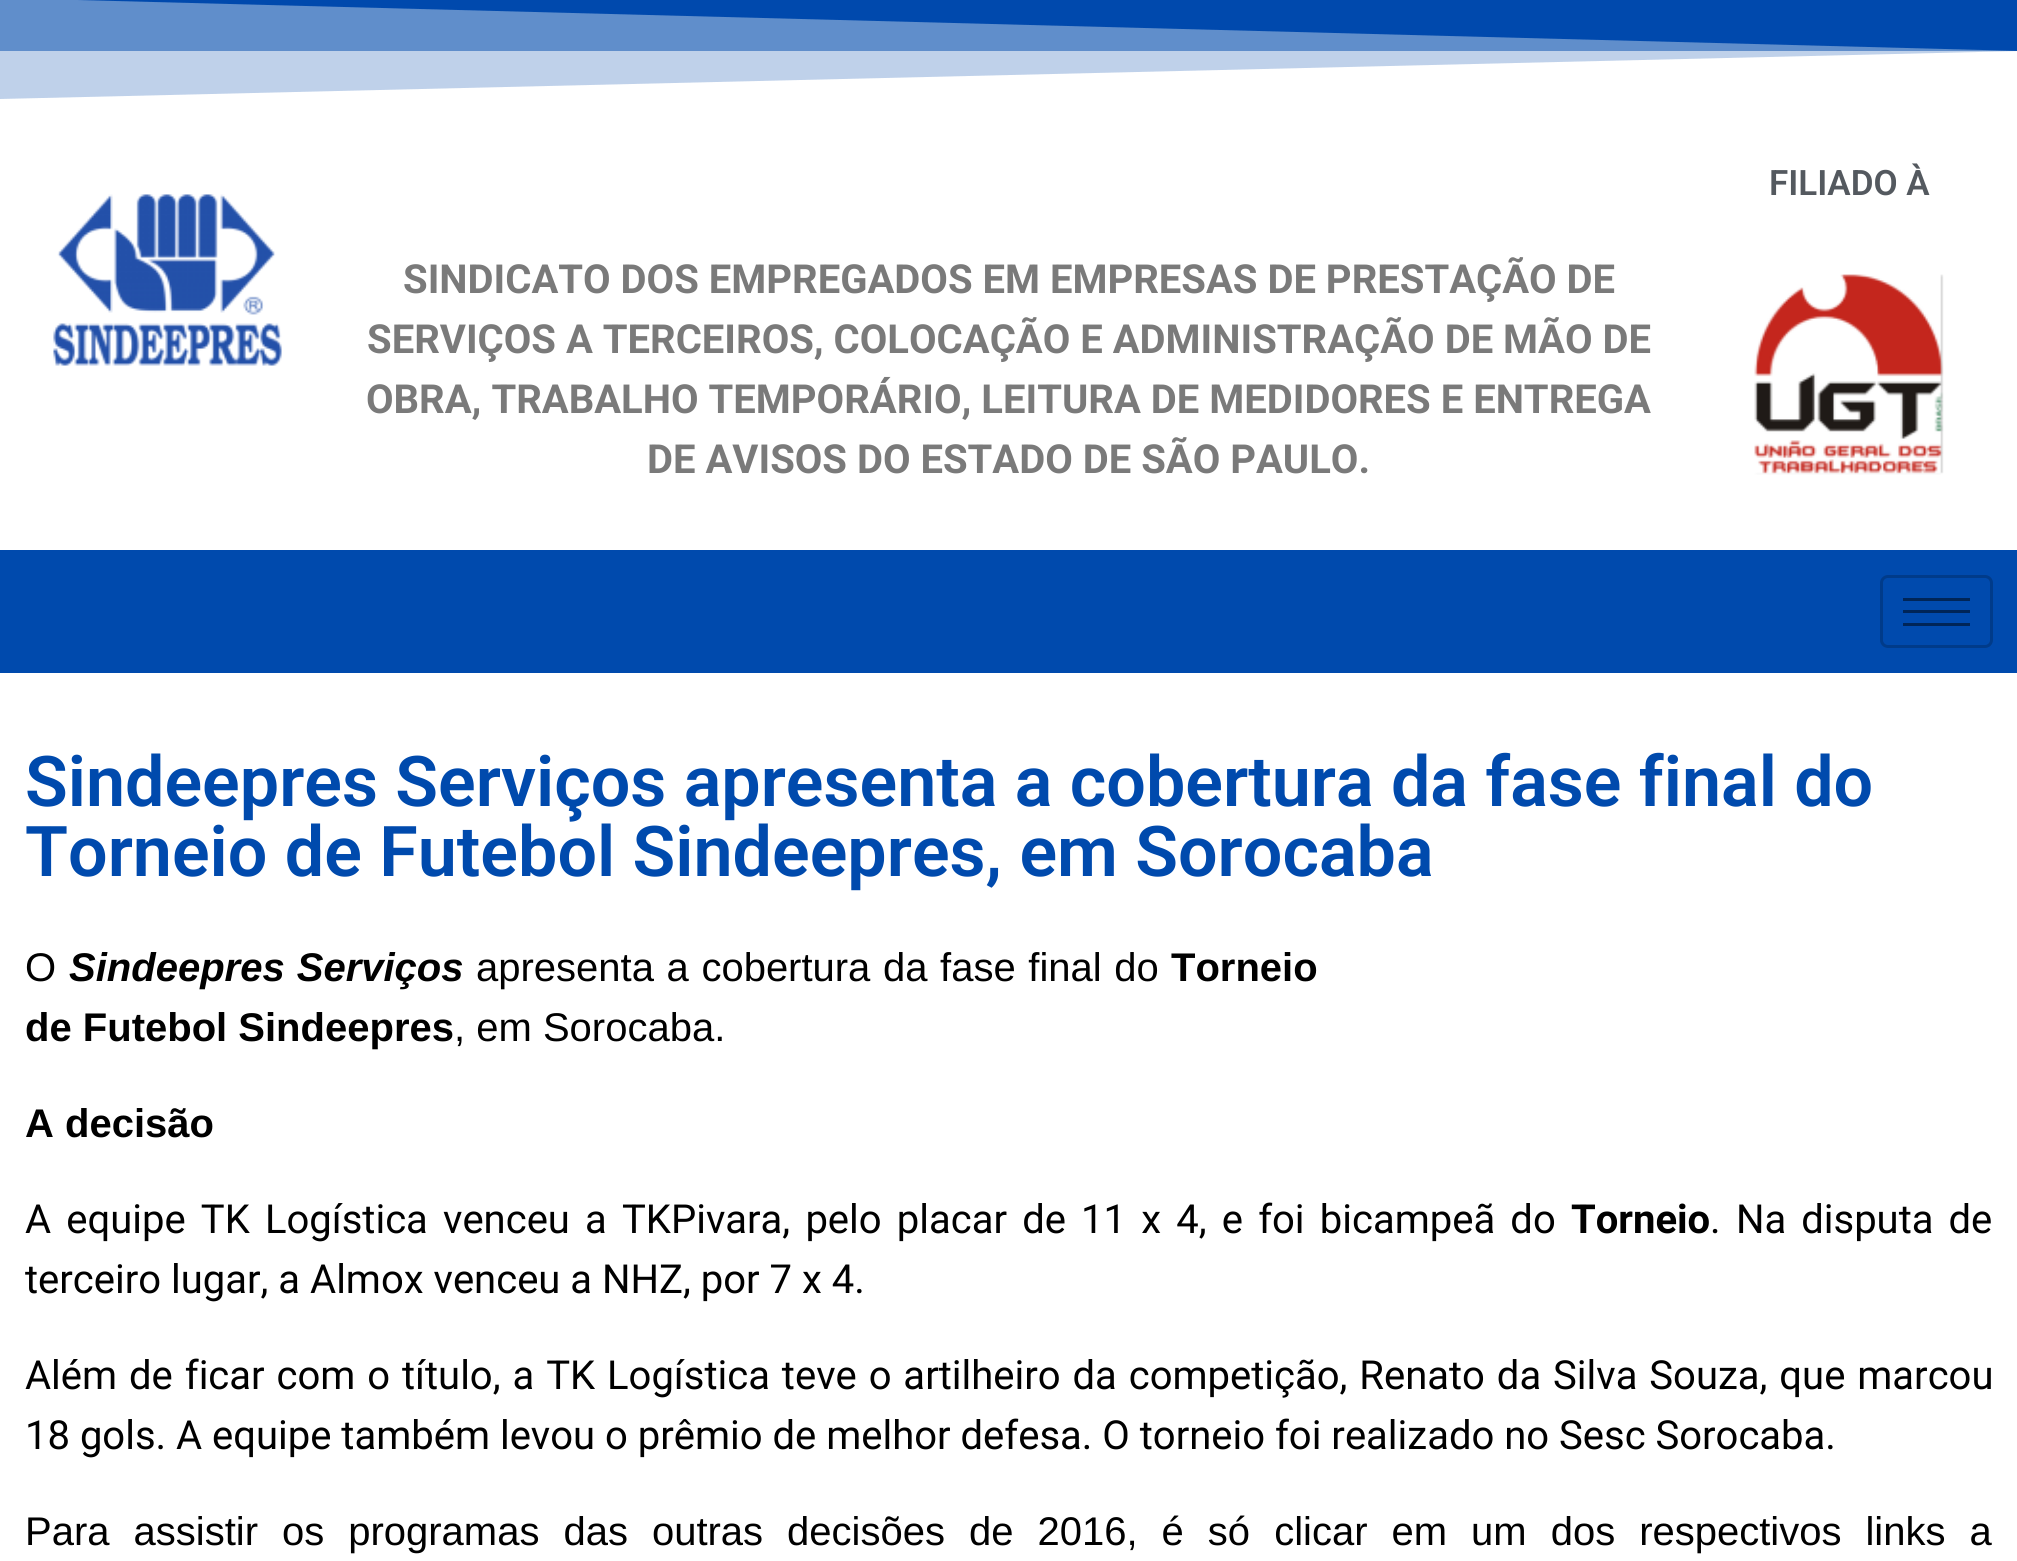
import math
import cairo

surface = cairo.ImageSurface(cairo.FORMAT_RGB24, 2017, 1561)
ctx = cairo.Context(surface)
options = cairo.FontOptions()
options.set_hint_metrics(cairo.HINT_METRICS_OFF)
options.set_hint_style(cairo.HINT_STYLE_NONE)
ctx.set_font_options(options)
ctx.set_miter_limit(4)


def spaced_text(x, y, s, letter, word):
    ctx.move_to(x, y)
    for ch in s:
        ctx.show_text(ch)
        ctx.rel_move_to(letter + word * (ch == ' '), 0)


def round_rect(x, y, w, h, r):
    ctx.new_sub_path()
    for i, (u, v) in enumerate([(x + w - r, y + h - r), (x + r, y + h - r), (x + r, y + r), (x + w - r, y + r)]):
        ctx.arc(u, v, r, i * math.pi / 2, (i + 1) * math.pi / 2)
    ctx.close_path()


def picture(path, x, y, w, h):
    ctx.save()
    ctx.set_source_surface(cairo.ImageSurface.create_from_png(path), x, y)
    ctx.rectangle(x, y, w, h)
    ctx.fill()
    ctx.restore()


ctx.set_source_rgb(1, 1, 1)
ctx.paint()
ctx.set_source_rgb(0.502, 0.647, 0.839)
ctx.rectangle(0, 0, 2017, 51)
ctx.fill()
ctx.set_source_rgb(0, 0.29, 0.678)
ctx.new_path()
ctx.move_to(0, -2)
ctx.line_to(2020, -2)
ctx.line_to(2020, 51)
ctx.close_path()
ctx.fill()
ctx.set_source_rgba(0, 0.29, 0.678, 0.25)
ctx.new_path()
ctx.move_to(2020, -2)
ctx.line_to(0, -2)
ctx.line_to(0, 99)
ctx.line_to(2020, 51)
ctx.close_path()
ctx.fill()
ctx.select_font_face("Roboto SemiBold")
ctx.set_font_size(35)
ctx.set_source_rgb(0.329, 0.349, 0.373)
ctx.move_to(1769, 195)
ctx.show_text("FILIADO À")
picture("img1.png", 1754, 274, 190, 201)
picture("img2.png", 53, 194, 229, 172)
ctx.select_font_face("Roboto", cairo.FONT_SLANT_NORMAL, cairo.FONT_WEIGHT_BOLD)
ctx.set_font_size(40)
ctx.set_source_rgb(0.478, 0.478, 0.478)
ctx.move_to(403, 293)
ctx.show_text("SINDICATO DOS EMPREGADOS EM EMPRESAS DE PRESTAÇÃO DE")
ctx.move_to(367, 353)
ctx.show_text("SERVIÇOS A TERCEIROS, COLOCAÇÃO E ADMINISTRAÇÃO DE MÃO DE")
ctx.move_to(366, 413)
ctx.show_text("OBRA, TRABALHO TEMPORÁRIO, LEITURA DE MEDIDORES E ENTREGA")
ctx.move_to(647, 473)
ctx.show_text("DE AVISOS DO ESTADO DE SÃO PAULO.")
ctx.set_source_rgb(0, 0.29, 0.678)
ctx.rectangle(0, 550, 2017, 123)
ctx.fill()
round_rect(1881.5, 576.5, 110, 70, 6.5)
ctx.set_source_rgb(0, 0.231, 0.541)
ctx.set_line_width(3)
ctx.stroke()
ctx.set_source_rgb(0, 0.145, 0.341)
ctx.rectangle(1903, 598, 67, 3)
ctx.fill()
ctx.rectangle(1903, 610, 67, 3)
ctx.fill()
ctx.rectangle(1903, 623, 67, 3)
ctx.fill()
ctx.select_font_face("Roboto SemiBold")
ctx.set_font_size(70)
ctx.set_source_rgb(0, 0.29, 0.678)
ctx.move_to(25, 806)
ctx.show_text("Sindeepres Serviços apresenta a cobertura da fase final do")
ctx.move_to(25, 876)
ctx.show_text("Torneio de Futebol Sindeepres, em Sorocaba")
ctx.select_font_face("Liberation Sans")
ctx.set_font_size(40)
ctx.set_source_rgb(0, 0, 0)
ctx.move_to(25, 981)
ctx.show_text("O")
ctx.select_font_face("Liberation Sans", cairo.FONT_SLANT_ITALIC, cairo.FONT_WEIGHT_BOLD)
spaced_text(69, 981, "Sindeepres Serviços", 0, 1)
ctx.select_font_face("Liberation Sans")
spaced_text(476, 981, "apresenta a cobertura da fase final do", 0, 1.5)
ctx.select_font_face("Liberation Sans", cairo.FONT_SLANT_NORMAL, cairo.FONT_WEIGHT_BOLD)
ctx.move_to(1171, 981)
ctx.show_text("Torneio")
ctx.move_to(25, 1041)
ctx.show_text("de Futebol Sindeepres")
ctx.select_font_face("Liberation Sans")
ctx.move_to(454, 1041)
ctx.show_text(", em Sorocaba.")
ctx.select_font_face("Liberation Sans", cairo.FONT_SLANT_NORMAL, cairo.FONT_WEIGHT_BOLD)
ctx.move_to(25, 1137)
ctx.show_text("A decisão")
ctx.select_font_face("Roboto")
spaced_text(25, 1233, "A equipe TK Logística venceu a TKPivara, pelo placar de 11 x 4, e foi bicampeã do", 0, 5.25)
ctx.select_font_face("Roboto", cairo.FONT_SLANT_NORMAL, cairo.FONT_WEIGHT_BOLD)
ctx.move_to(1571, 1233)
ctx.show_text("Torneio")
ctx.select_font_face("Roboto")
ctx.move_to(1710, 1233)
ctx.show_text(".")
spaced_text(1736, 1233, "Na disputa de", 0, 5)
ctx.move_to(25, 1293)
ctx.show_text("terceiro lugar, a Almox venceu a NHZ, por 7 x 4.")
spaced_text(25, 1389, "Além de ficar com o título, a TK Logística teve o artilheiro da competição, Renato da Silva Souza, que marcou", 0, 2)
ctx.move_to(25, 1449)
ctx.show_text("18 gols. A equipe também levou o prêmio de melhor defesa. O torneio foi realizado no Sesc Sorocaba.")
ctx.select_font_face("Liberation Sans")
spaced_text(25, 1545, "Para assistir os programas das outras decisões de 2016, é só clicar em um dos respectivos links a", 0, 12.9)
surface.write_to_png("page.png")
